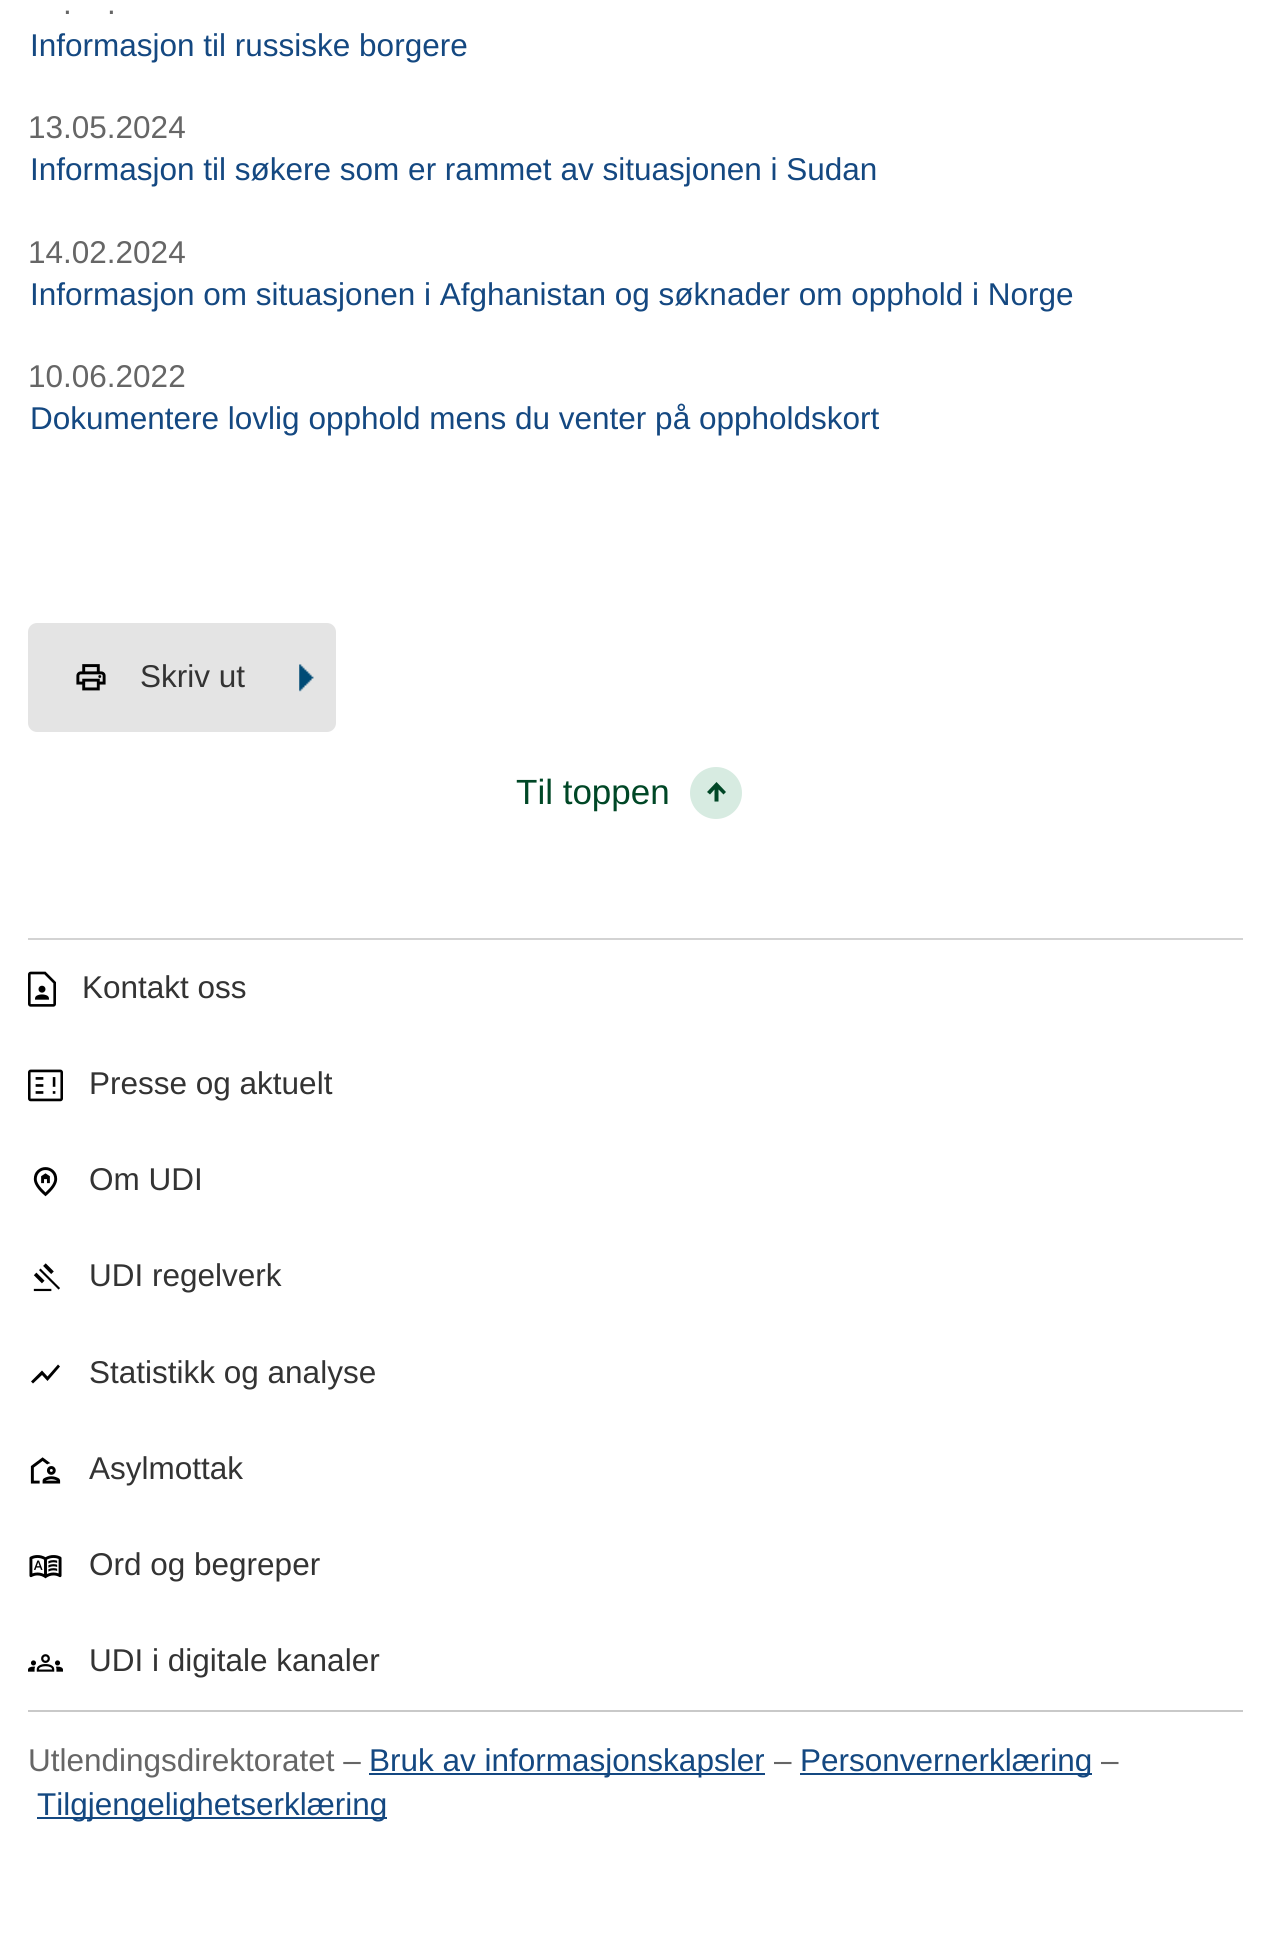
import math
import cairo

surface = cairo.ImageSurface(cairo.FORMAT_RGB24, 1269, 1938)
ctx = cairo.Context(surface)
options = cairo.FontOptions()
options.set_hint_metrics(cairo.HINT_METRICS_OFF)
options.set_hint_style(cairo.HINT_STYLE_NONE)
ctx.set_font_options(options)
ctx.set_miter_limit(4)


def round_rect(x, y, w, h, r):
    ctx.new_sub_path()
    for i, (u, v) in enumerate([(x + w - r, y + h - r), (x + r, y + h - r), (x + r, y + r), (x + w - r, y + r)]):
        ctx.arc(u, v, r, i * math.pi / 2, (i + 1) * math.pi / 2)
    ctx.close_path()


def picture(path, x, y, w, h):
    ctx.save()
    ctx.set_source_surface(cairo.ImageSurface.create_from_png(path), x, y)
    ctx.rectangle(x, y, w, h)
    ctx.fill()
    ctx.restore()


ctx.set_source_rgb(1, 1, 1)
ctx.paint()
ctx.select_font_face("Liberation Sans")
ctx.set_font_size(31.5)
ctx.set_source_rgb(0.4, 0.4, 0.4)
ctx.move_to(63, 14)
ctx.show_text(".")
ctx.move_to(107, 14)
ctx.show_text(".")
ctx.set_source_rgb(0.082, 0.282, 0.506)
ctx.move_to(30, 56)
ctx.show_text("Informasjon til russiske borgere")
ctx.set_source_rgb(0.4, 0.4, 0.4)
ctx.move_to(28, 138)
ctx.show_text("13.05.2024")
ctx.set_source_rgb(0.082, 0.282, 0.506)
ctx.move_to(30, 180)
ctx.show_text("Informasjon til søkere som er rammet av situasjonen i Sudan")
ctx.set_source_rgb(0.4, 0.4, 0.4)
ctx.move_to(28, 263)
ctx.show_text("14.02.2024")
ctx.set_source_rgb(0.082, 0.282, 0.506)
ctx.move_to(30, 305)
ctx.show_text("Informasjon om situasjonen i Afghanistan og søknader om opphold i Norge")
ctx.set_source_rgb(0.4, 0.4, 0.4)
ctx.move_to(28, 387)
ctx.show_text("10.06.2022")
ctx.set_source_rgb(0.082, 0.282, 0.506)
ctx.move_to(30, 429)
ctx.show_text("Dokumentere lovlig opphold mens du venter på oppholdskort")
ctx.set_source_rgb(0.894, 0.894, 0.894)
round_rect(28, 623, 308, 109, 9)
ctx.fill()
picture("img1.png", 76, 664, 30, 27)
ctx.set_source_rgb(0.2, 0.2, 0.2)
ctx.move_to(140, 687)
ctx.show_text("Skriv ut")
picture("img2.png", 299, 664, 15, 28)
ctx.set_font_size(35)
ctx.set_source_rgb(0, 0.278, 0.149)
ctx.move_to(516, 804)
ctx.show_text("Til toppen")
ctx.set_source_rgb(0.843, 0.918, 0.882)
ctx.new_path()
ctx.arc(716, 793, 26, 0, 2 * math.pi)
ctx.fill()
ctx.set_source_rgb(0, 0.278, 0.149)
ctx.new_path()
ctx.move_to(714.5, 801.5)
ctx.line_to(718.5, 801.5)
ctx.line_to(718.5, 789.5)
ctx.line_to(723.5, 794.5)
ctx.line_to(726, 792)
ctx.line_to(716.5, 782)
ctx.line_to(707, 792)
ctx.line_to(710, 794.5)
ctx.line_to(714.5, 789.5)
ctx.close_path()
ctx.fill()
ctx.set_source_rgb(0.827, 0.827, 0.827)
ctx.rectangle(28, 938, 1215, 2)
ctx.fill()
picture("img3.png", 28, 971, 28, 36)
ctx.set_font_size(31.5)
ctx.set_source_rgb(0.2, 0.2, 0.2)
ctx.move_to(82, 998)
ctx.show_text("Kontakt oss")
picture("img4.png", 28, 1069, 35, 33)
ctx.move_to(89, 1094)
ctx.show_text("Presse og aktuelt")
picture("img5.png", 33, 1167, 25, 30)
ctx.move_to(89, 1190)
ctx.show_text("Om UDI")
picture("img6.png", 33, 1263, 27, 29)
ctx.move_to(89, 1286)
ctx.show_text("UDI regelverk")
ctx.set_source_rgb(0, 0, 0)
ctx.new_path()
ctx.move_to(33, 1383.5)
ctx.line_to(31, 1381.5)
ctx.line_to(42, 1370.5)
ctx.line_to(47.5, 1376.5)
ctx.line_to(58, 1364.5)
ctx.line_to(60, 1366.5)
ctx.line_to(47.5, 1381)
ctx.line_to(42, 1375)
ctx.close_path()
ctx.fill()
ctx.set_source_rgb(0.2, 0.2, 0.2)
ctx.move_to(89, 1383)
ctx.show_text("Statistikk og analyse")
picture("img7.png", 30, 1457, 31, 27)
ctx.move_to(89, 1479)
ctx.show_text("Asylmottak")
picture("img8.png", 29, 1555, 33, 24)
ctx.move_to(89, 1575)
ctx.show_text("Ord og begreper")
picture("img9.png", 28, 1654, 35, 18)
ctx.move_to(89, 1671)
ctx.show_text("UDI i digitale kanaler")
ctx.set_source_rgb(0.788, 0.788, 0.788)
ctx.rectangle(28, 1710, 1215, 2)
ctx.fill()
ctx.set_source_rgb(0.4, 0.4, 0.4)
ctx.move_to(28, 1771)
ctx.show_text("Utlendingsdirektoratet –")
ctx.set_source_rgb(0.082, 0.282, 0.506)
ctx.rectangle(369, 1773, 396, 2)
ctx.fill()
ctx.move_to(369, 1771)
ctx.show_text("Bruk av informasjonskapsler")
ctx.set_source_rgb(0.4, 0.4, 0.4)
ctx.move_to(774, 1771)
ctx.show_text("–")
ctx.set_source_rgb(0.082, 0.282, 0.506)
ctx.rectangle(800, 1773, 292, 2)
ctx.fill()
ctx.move_to(800, 1771)
ctx.show_text("Personvernerklæring")
ctx.set_source_rgb(0.4, 0.4, 0.4)
ctx.move_to(1101, 1771)
ctx.show_text("–")
ctx.set_source_rgb(0.082, 0.282, 0.506)
ctx.rectangle(37, 1817, 350, 2)
ctx.fill()
ctx.move_to(37, 1815)
ctx.show_text("Tilgjengelighetserklæring")
surface.write_to_png("page.png")
